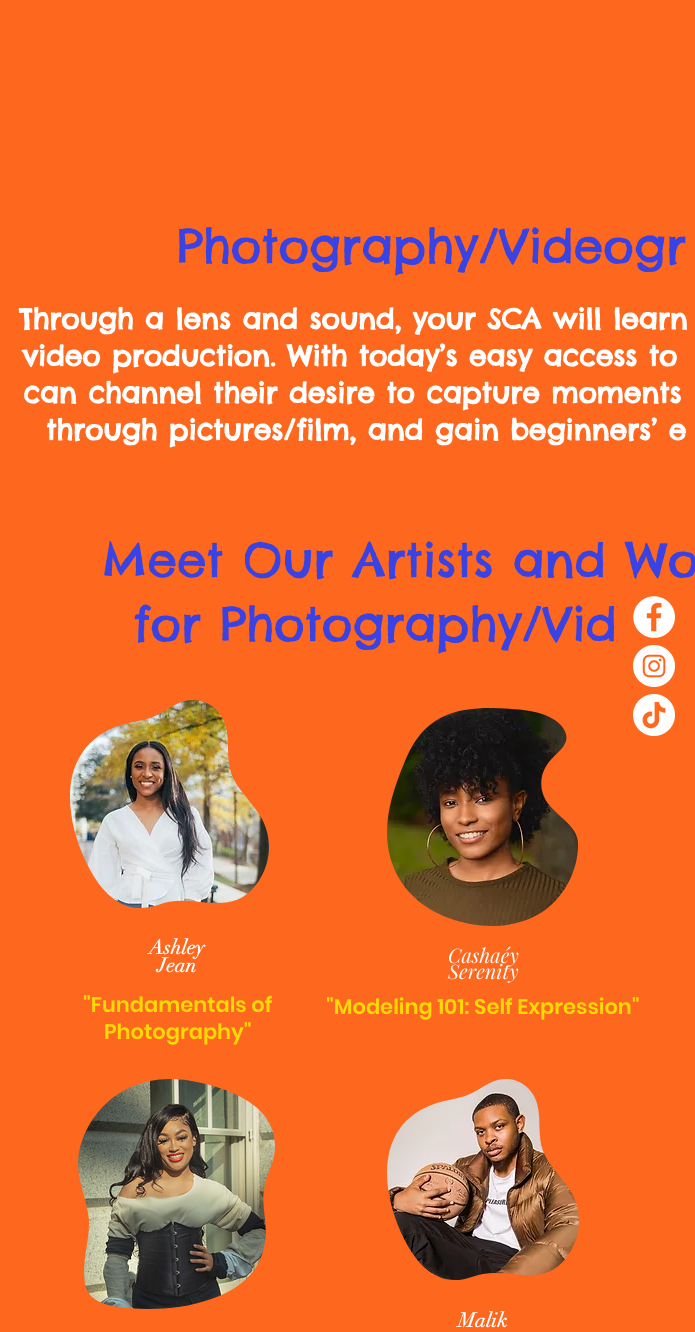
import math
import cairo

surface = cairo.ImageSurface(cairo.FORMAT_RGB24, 695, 1332)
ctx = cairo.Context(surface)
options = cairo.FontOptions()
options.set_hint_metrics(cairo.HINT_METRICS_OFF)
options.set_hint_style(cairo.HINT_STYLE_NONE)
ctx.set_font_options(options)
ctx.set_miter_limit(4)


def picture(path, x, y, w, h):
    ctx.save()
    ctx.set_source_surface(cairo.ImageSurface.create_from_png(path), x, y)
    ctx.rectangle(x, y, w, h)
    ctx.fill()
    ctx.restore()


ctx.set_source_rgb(0.996, 0.404, 0.118)
ctx.paint()
ctx.select_font_face("Chelsea Market")
ctx.set_font_size(47)
ctx.set_source_rgb(0.224, 0.259, 0.89)
ctx.move_to(177, 263)
ctx.show_text("Photography/Videogr")
ctx.select_font_face("Chelsea Market", cairo.FONT_SLANT_NORMAL, cairo.FONT_WEIGHT_BOLD)
ctx.set_font_size(28)
ctx.set_source_rgb(1, 1, 1)
ctx.move_to(19, 329)
ctx.show_text("Through a lens and sound, your SCA will learn")
ctx.move_to(22, 366)
ctx.show_text("video production. With today’s easy access to")
ctx.move_to(23, 403)
ctx.show_text("can channel their desire to capture moments")
ctx.move_to(46, 440)
ctx.show_text("through pictures/film, and gain beginners’ e")
ctx.select_font_face("Chelsea Market")
ctx.set_font_size(47)
ctx.set_source_rgb(0.224, 0.259, 0.89)
ctx.move_to(102, 577)
ctx.show_text("Meet Our Artists and Wo")
ctx.move_to(133, 641)
ctx.show_text("for Photography/Vid")
picture("img1.png", 70, 700, 199, 208)
ctx.select_font_face("didot", cairo.FONT_SLANT_NORMAL, cairo.FONT_WEIGHT_BOLD)
ctx.set_font_size(20)
ctx.set_source_rgb(1, 1, 1)
ctx.move_to(149, 954)
ctx.show_text("Ashley")
ctx.move_to(157, 972)
ctx.show_text("Jean")
ctx.select_font_face("Poppins SemiBold")
ctx.set_font_size(21)
ctx.set_source_rgb(1, 0.851, 0.027)
ctx.move_to(83, 1012)
ctx.show_text("\"Fundamentals of")
ctx.move_to(104, 1039)
ctx.show_text("Photography\"")
picture("img2.png", 387, 708, 191, 218)
ctx.select_font_face("Playfair Display", cairo.FONT_SLANT_ITALIC)
ctx.set_font_size(20)
ctx.set_source_rgb(1, 1, 1)
ctx.move_to(448, 963)
ctx.show_text("Cashaéy")
ctx.move_to(448, 979)
ctx.show_text("Serenity")
ctx.select_font_face("Poppins SemiBold")
ctx.set_font_size(21)
ctx.set_source_rgb(1, 0.851, 0.027)
ctx.move_to(326, 1014)
ctx.show_text("\"Modeling 101: Self Expression\"")
picture("img3.png", 78, 1079, 197, 230)
picture("img4.png", 387, 1079, 192, 201)
ctx.select_font_face("didot", cairo.FONT_SLANT_NORMAL, cairo.FONT_WEIGHT_BOLD)
ctx.set_font_size(20)
ctx.set_source_rgb(1, 1, 1)
ctx.move_to(458, 1327)
ctx.show_text("Malik")
picture("img5.png", 633, 596, 42, 42)
picture("img6.png", 633, 645, 42, 42)
picture("img7.png", 633, 694, 42, 42)
surface.write_to_png("page.png")
